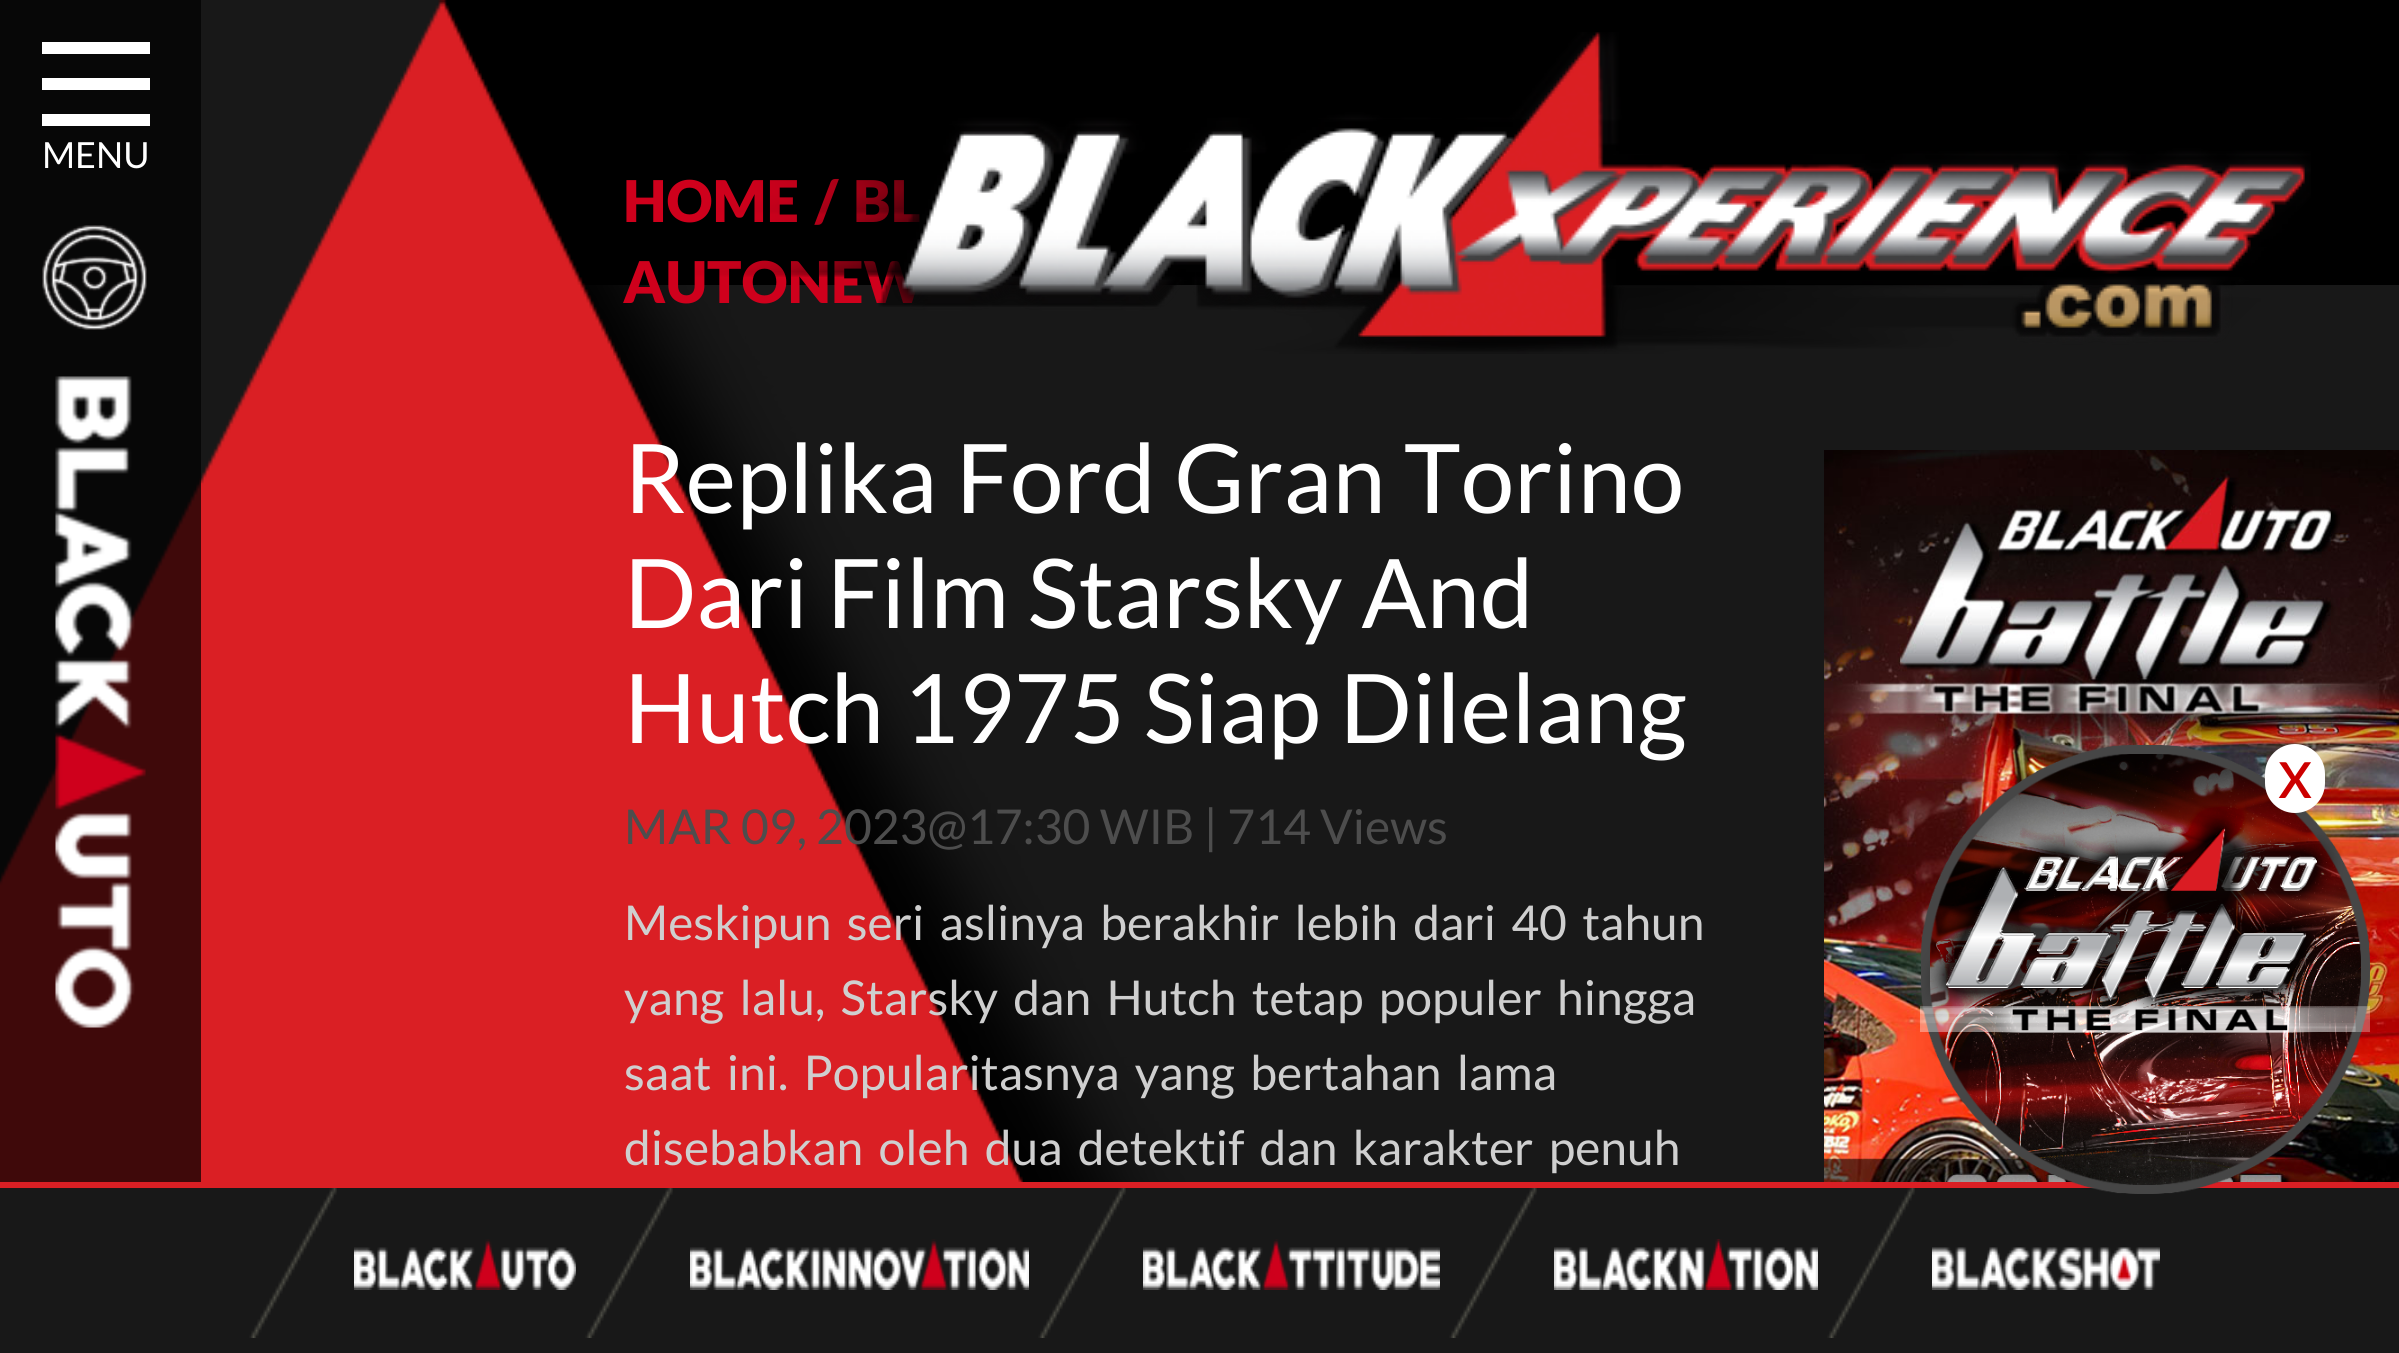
import math
import cairo

surface = cairo.ImageSurface(cairo.FORMAT_RGB24, 2399, 1353)
ctx = cairo.Context(surface)
options = cairo.FontOptions()
options.set_hint_metrics(cairo.HINT_METRICS_OFF)
options.set_hint_style(cairo.HINT_STYLE_NONE)
ctx.set_font_options(options)
ctx.set_miter_limit(4)


def spaced_text(x, y, s, letter, word):
    ctx.move_to(x, y)
    for ch in s:
        ctx.show_text(ch)
        ctx.rel_move_to(letter + word * (ch == ' '), 0)


def round_rect(x, y, w, h, r):
    ctx.new_sub_path()
    for i, (u, v) in enumerate([(x + w - r, y + h - r), (x + r, y + h - r), (x + r, y + r), (x + w - r, y + r)]):
        ctx.arc(u, v, r, i * math.pi / 2, (i + 1) * math.pi / 2)
    ctx.close_path()


def picture(path, x, y, w, h):
    ctx.save()
    ctx.set_source_surface(cairo.ImageSurface.create_from_png(path), x, y)
    ctx.rectangle(x, y, w, h)
    ctx.fill()
    ctx.restore()


ctx.set_source_rgb(0.094, 0.094, 0.094)
ctx.paint()
ctx.set_source_rgb(0, 0, 0)
ctx.rectangle(441, 0, 1958, 285)
ctx.fill()
picture("img3.png", 0, 0, 1186, 1182)
ctx.set_source_rgba(0, 0, 0, 0.71)
ctx.rectangle(0, 0, 201, 1182)
ctx.fill()
ctx.set_source_rgb(1, 1, 1)
ctx.rectangle(42, 42, 108, 12)
ctx.fill()
ctx.rectangle(42, 78, 108, 12)
ctx.fill()
ctx.rectangle(42, 114, 108, 12)
ctx.fill()
ctx.select_font_face("Lato")
ctx.set_font_size(36)
ctx.move_to(42, 168)
ctx.show_text("MENU")
picture("img1.png", 42, 225, 105, 105)
picture("img2.png", 55, 376, 91, 652)
ctx.select_font_face("Lato Black")
ctx.set_font_size(57.5)
ctx.set_source_rgb(0.812, 0, 0.11)
ctx.move_to(623, 222)
ctx.show_text("HOME")
ctx.move_to(815, 222)
ctx.show_text("/")
ctx.move_to(853, 222)
ctx.show_text("BL")
ctx.move_to(623, 303)
ctx.show_text("AUTONEW")
picture("img4.png", 695, 32, 1616, 322)
ctx.select_font_face("Lato")
ctx.set_font_size(96)
ctx.set_source_rgb(1, 1, 1)
ctx.move_to(624, 513)
ctx.show_text("Replika Ford Gran Torino")
ctx.move_to(624, 628)
ctx.show_text("Dari Film Starsky And")
ctx.move_to(624, 743)
ctx.show_text("Hutch 1975 Siap Dilelang")
ctx.set_font_size(48)
ctx.set_source_rgb(0.302, 0.302, 0.302)
ctx.move_to(624, 844)
ctx.show_text("MAR 09, 2023@17:30 WIB | 714 Views")
ctx.set_source_rgb(0.812, 0.812, 0.812)
spaced_text(624, 940, "Meskipun seri aslinya berakhir lebih dari 40 tahun", 0, 6)
spaced_text(624, 1015, "yang lalu, Starsky dan Hutch tetap populer hingga", 0, 6)
spaced_text(624, 1090, "saat ini. Popularitasnya yang bertahan lama", 0, 6)
spaced_text(624, 1165, "disebabkan oleh dua detektif dan karakter penuh", 0, 6)
picture("img5.png", 1824, 450, 575, 732)
ctx.set_source_rgb(0.855, 0.122, 0.141)
ctx.rectangle(0, 1182, 2399, 6)
ctx.fill()
picture("img6.png", 1920, 745, 450, 449)
ctx.set_source_rgb(1, 1, 1)
round_rect(2265, 744, 60, 69, 30)
ctx.fill()
ctx.select_font_face("Lato", cairo.FONT_SLANT_NORMAL, cairo.FONT_WEIGHT_BOLD)
ctx.set_source_rgb(0.8, 0, 0)
ctx.move_to(2279, 798)
ctx.show_text("X")
picture("img7.png", 249, 1188, 88, 150)
picture("img8.png", 354, 1239, 222, 51)
picture("img7.png", 585, 1188, 88, 150)
picture("img9.png", 690, 1239, 339, 51)
picture("img7.png", 1038, 1188, 88, 150)
picture("img10.png", 1143, 1239, 297, 51)
picture("img7.png", 1449, 1188, 88, 150)
picture("img11.png", 1554, 1239, 264, 51)
picture("img7.png", 1827, 1188, 88, 150)
picture("img12.png", 1932, 1247, 228, 43)
surface.write_to_png("page.png")
